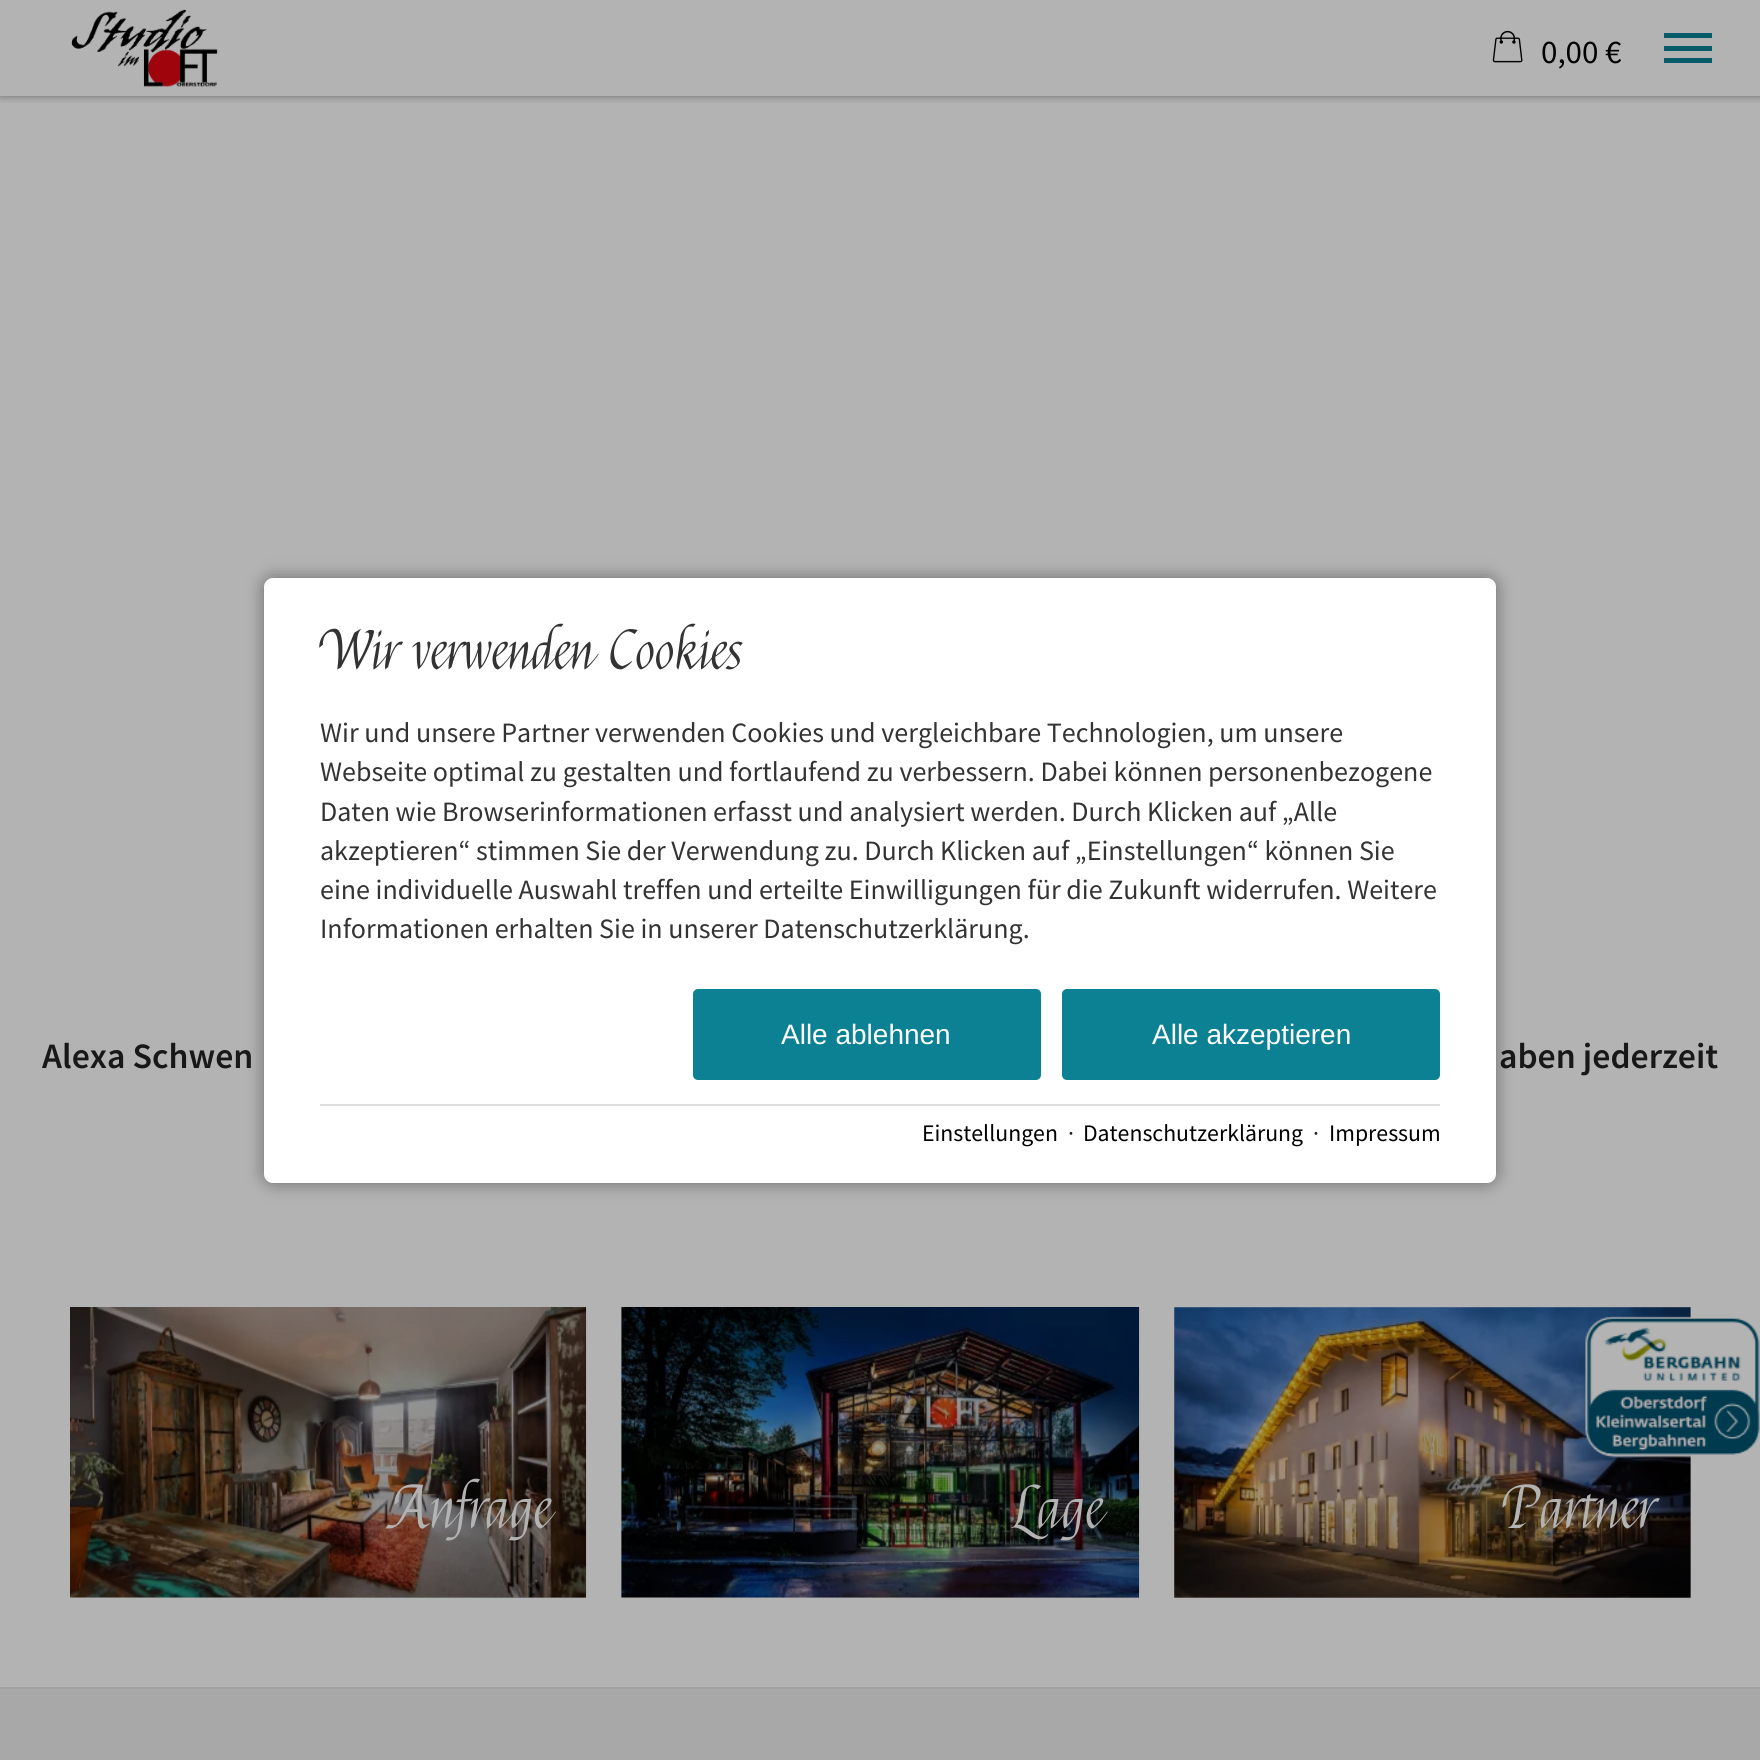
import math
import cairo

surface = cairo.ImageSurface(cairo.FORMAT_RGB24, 1760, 1760)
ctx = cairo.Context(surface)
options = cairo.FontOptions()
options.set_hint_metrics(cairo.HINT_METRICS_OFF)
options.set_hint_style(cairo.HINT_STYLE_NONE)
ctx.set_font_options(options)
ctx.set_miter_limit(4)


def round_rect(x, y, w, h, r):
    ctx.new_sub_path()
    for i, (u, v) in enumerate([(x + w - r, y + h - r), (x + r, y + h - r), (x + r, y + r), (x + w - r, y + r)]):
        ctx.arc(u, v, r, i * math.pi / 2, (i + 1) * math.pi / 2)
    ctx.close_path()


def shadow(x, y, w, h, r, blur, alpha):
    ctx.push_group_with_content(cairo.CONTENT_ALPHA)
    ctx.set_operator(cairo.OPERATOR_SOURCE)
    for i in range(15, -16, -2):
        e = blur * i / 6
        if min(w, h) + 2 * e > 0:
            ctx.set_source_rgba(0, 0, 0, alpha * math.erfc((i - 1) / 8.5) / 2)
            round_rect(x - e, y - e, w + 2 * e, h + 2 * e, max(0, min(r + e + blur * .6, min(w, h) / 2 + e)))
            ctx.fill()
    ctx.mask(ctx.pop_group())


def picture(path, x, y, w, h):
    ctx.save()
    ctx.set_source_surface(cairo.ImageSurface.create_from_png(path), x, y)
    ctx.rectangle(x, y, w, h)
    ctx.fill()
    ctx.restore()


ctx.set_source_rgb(0.702, 0.702, 0.702)
ctx.paint()
ctx.save()
ctx.rectangle(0, 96, 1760, 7)
ctx.clip()
ctx.set_source_rgb(0, 0, 0)
shadow(0, 0, 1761, 96, 0, 4.5, 0.4)
ctx.restore()
picture("img1.png", 71, 9, 147, 78)
picture("img2.png", 1492, 30, 31, 33)
ctx.select_font_face("Source Sans Pro")
ctx.set_font_size(33)
ctx.set_source_rgb(0, 0, 0)
ctx.move_to(1541, 63)
ctx.show_text("0,00 €")
ctx.set_source_rgb(0.031, 0.353, 0.404)
ctx.rectangle(1664, 33, 48, 5)
ctx.fill()
ctx.rectangle(1664, 46, 48, 5)
ctx.fill()
ctx.rectangle(1664, 58, 48, 5)
ctx.fill()
picture("img6.png", 1174, 1307, 517, 291)
gradient = cairo.LinearGradient(1634, 1654, 1231, 1251)
gradient.add_color_stop_rgba(0, 0, 0, 0, 0.28)
gradient.add_color_stop_rgba(1, 0, 0, 0, 0)
ctx.set_source(gradient)
ctx.rectangle(1174, 1307, 517, 291)
ctx.fill()
picture("img3.png", 1585, 1316, 175, 142)
ctx.select_font_face("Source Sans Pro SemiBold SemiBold")
ctx.set_font_size(35.75)
ctx.set_source_rgb(0.094, 0.094, 0.094)
ctx.move_to(42, 1068)
ctx.show_text("Alexa Schwen")
ctx.move_to(1499, 1068)
ctx.show_text("aben jederzeit")
picture("img4.png", 70, 1307, 517, 291)
gradient = cairo.LinearGradient(530, 1654, 126, 1251)
gradient.add_color_stop_rgba(0, 0, 0, 0, 0.28)
gradient.add_color_stop_rgba(1, 0, 0, 0, 0)
ctx.set_source(gradient)
ctx.rectangle(70, 1307, 516, 291)
ctx.fill()
ctx.select_font_face("Felipa")
ctx.set_font_size(58)
ctx.set_source_rgb(0.702, 0.702, 0.702)
ctx.move_to(391, 1528)
ctx.show_text("Anfrage")
picture("img5.png", 621, 1307, 519, 291)
gradient = cairo.LinearGradient(1082, 1655, 678, 1250)
gradient.add_color_stop_rgba(0, 0, 0, 0, 0.28)
gradient.add_color_stop_rgba(1, 0, 0, 0, 0)
ctx.set_source(gradient)
ctx.rectangle(621, 1307, 518, 291)
ctx.fill()
ctx.set_source_rgb(0.702, 0.702, 0.702)
ctx.move_to(1014, 1528)
ctx.show_text("Lage")
ctx.move_to(1503, 1528)
ctx.show_text("Partner")
ctx.set_source_rgb(0.659, 0.659, 0.659)
ctx.rectangle(0, 1689, 1760, 71)
ctx.fill()
ctx.set_source_rgb(0.627, 0.627, 0.627)
ctx.rectangle(0, 1687, 1760, 2)
ctx.fill()
ctx.set_source_rgb(0, 0, 0)
shadow(264, 578, 1232, 605, 9, 9, 0.4)
ctx.set_source_rgb(1, 1, 1)
round_rect(264, 578, 1232, 605, 9)
ctx.fill()
ctx.set_font_size(53.25)
ctx.set_source_rgb(0.2, 0.2, 0.2)
ctx.move_to(320, 669)
ctx.show_text("Wir verwenden Cookies")
ctx.select_font_face("Source Sans Pro")
ctx.set_font_size(28)
ctx.move_to(320, 742)
ctx.show_text("Wir und unsere Partner verwenden Cookies und vergleichbare Technologien, um unsere")
ctx.move_to(320, 781)
ctx.show_text("Webseite optimal zu gestalten und fortlaufend zu verbessern. Dabei können personenbezogene")
ctx.move_to(320, 821)
ctx.show_text("Daten wie Browserinformationen erfasst und analysiert werden. Durch Klicken auf „Alle")
ctx.move_to(320, 860)
ctx.show_text("akzeptieren“ stimmen Sie der Verwendung zu. Durch Klicken auf „Einstellungen“ können Sie")
ctx.move_to(320, 899)
ctx.show_text("eine individuelle Auswahl treffen und erteilte Einwilligungen für die Zukunft widerrufen. Weitere")
ctx.move_to(320, 938)
ctx.show_text("Informationen erhalten Sie in unserer Datenschutzerklärung.")
ctx.set_source_rgb(0.047, 0.506, 0.576)
round_rect(693, 989, 348, 91, 5)
ctx.fill()
ctx.select_font_face("Liberation Sans")
ctx.set_source_rgb(1, 1, 1)
ctx.move_to(781, 1044)
ctx.show_text("Alle ablehnen")
ctx.set_source_rgb(0.047, 0.506, 0.576)
round_rect(1062, 989, 378, 91, 5)
ctx.fill()
ctx.set_source_rgb(1, 1, 1)
ctx.move_to(1152, 1044)
ctx.show_text("Alle akzeptieren")
ctx.set_source_rgb(0.867, 0.867, 0.867)
ctx.rectangle(320, 1104, 1120, 2)
ctx.fill()
ctx.select_font_face("Source Sans Pro")
ctx.set_font_size(23.75)
ctx.set_source_rgb(0, 0, 0)
ctx.move_to(922, 1141)
ctx.show_text("Einstellungen")
ctx.set_source_rgb(0.133, 0.133, 0.133)
ctx.move_to(1068, 1141)
ctx.show_text("·")
ctx.set_source_rgb(0, 0, 0)
ctx.move_to(1083, 1141)
ctx.show_text("Datenschutzerklärung")
ctx.set_source_rgb(0.133, 0.133, 0.133)
ctx.move_to(1313, 1141)
ctx.show_text("·")
ctx.set_source_rgb(0, 0, 0)
ctx.move_to(1329, 1141)
ctx.show_text("Impressum")
surface.write_to_png("page.png")
